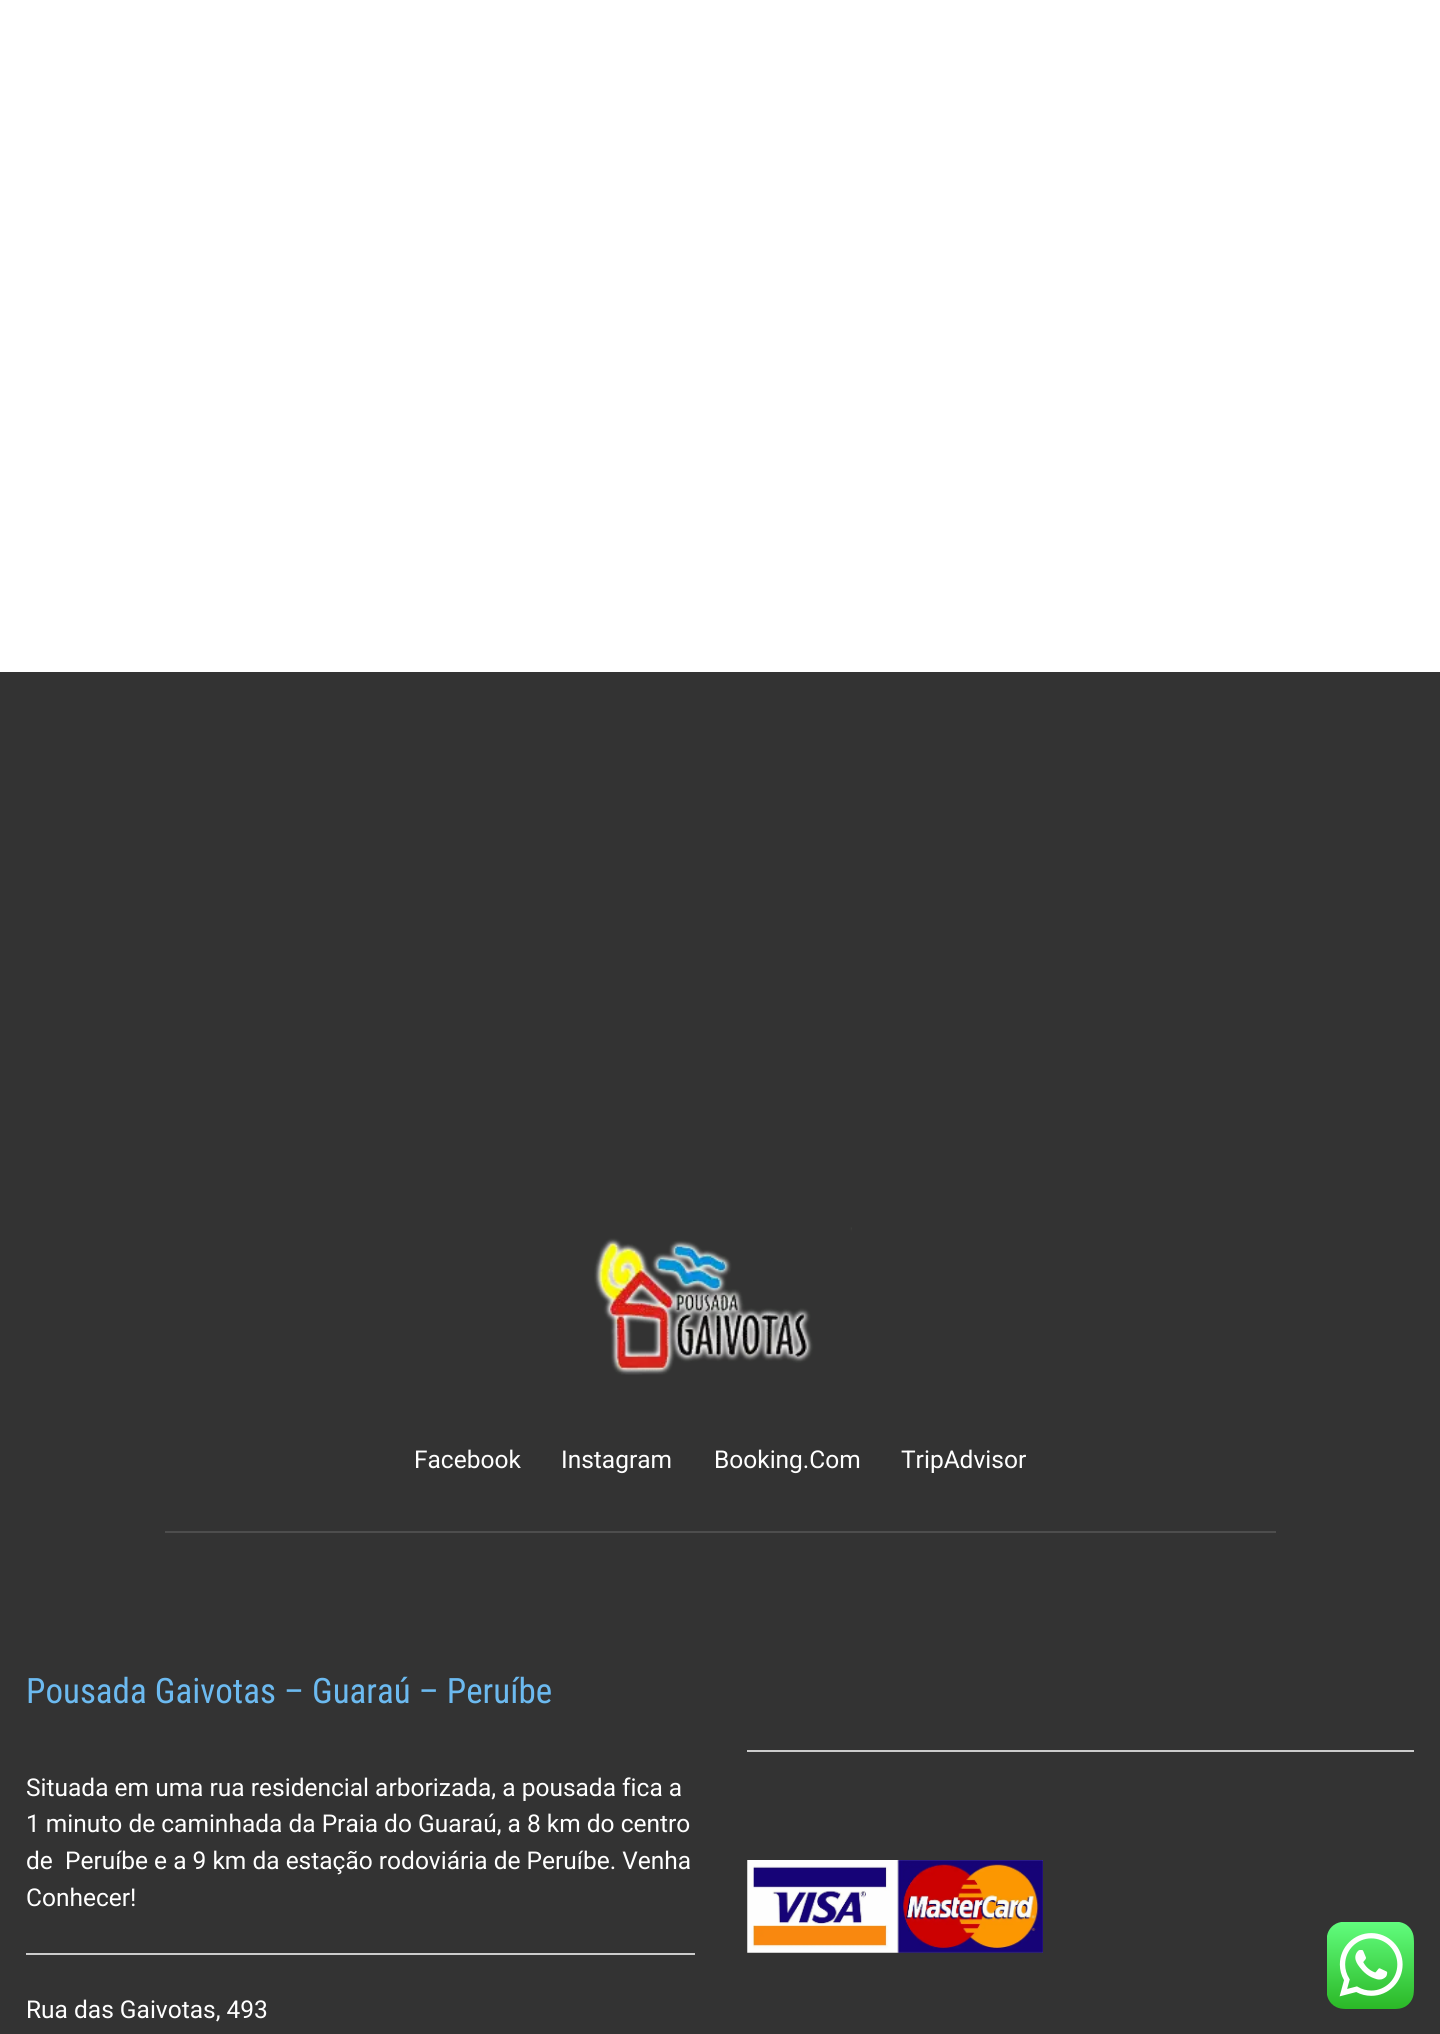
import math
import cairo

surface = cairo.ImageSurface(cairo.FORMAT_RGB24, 1440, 2034)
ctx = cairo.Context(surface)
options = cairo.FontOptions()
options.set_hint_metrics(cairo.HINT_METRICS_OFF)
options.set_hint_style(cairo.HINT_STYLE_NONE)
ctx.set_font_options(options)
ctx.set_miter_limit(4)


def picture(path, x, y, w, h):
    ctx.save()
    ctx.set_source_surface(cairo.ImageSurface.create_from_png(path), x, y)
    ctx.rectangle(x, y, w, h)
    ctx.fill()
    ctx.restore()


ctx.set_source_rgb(1, 1, 1)
ctx.paint()
ctx.set_source_rgb(0.2, 0.2, 0.2)
ctx.rectangle(0, 672, 1440, 1362)
ctx.fill()
picture("img1.png", 594, 1227, 258, 148)
ctx.set_source_rgb(0.302, 0.302, 0.302)
ctx.rectangle(165, 1531, 1111, 2)
ctx.fill()
ctx.select_font_face("Roboto")
ctx.set_font_size(24.5)
ctx.set_source_rgb(1, 1, 1)
ctx.move_to(414, 1468)
ctx.show_text("Facebook")
ctx.move_to(561, 1468)
ctx.show_text("Instagram")
ctx.move_to(714, 1468)
ctx.show_text("Booking.Com")
ctx.move_to(901, 1468)
ctx.show_text("TripAdvisor")
ctx.select_font_face("Roboto Condensed")
ctx.set_font_size(35)
ctx.set_source_rgb(0.424, 0.729, 0.941)
ctx.move_to(26, 1703)
ctx.show_text("Pousada Gaivotas – Guaraú – Peruíbe")
ctx.select_font_face("Roboto")
ctx.set_font_size(24.5)
ctx.set_source_rgb(1, 1, 1)
ctx.move_to(26, 1796)
ctx.show_text("Situada em uma rua residencial arborizada, a pousada fica a")
ctx.move_to(26, 1832)
ctx.show_text("1 minuto de caminhada da Praia do Guaraú, a 8 km do centro")
ctx.move_to(26, 1869)
ctx.show_text("de  Peruíbe e a 9 km da estação rodoviária de Peruíbe. Venha")
ctx.move_to(26, 1906)
ctx.show_text("Conhecer!")
ctx.set_source_rgb(0.8, 0.8, 0.8)
ctx.rectangle(26, 1953, 669, 2)
ctx.fill()
ctx.set_source_rgb(1, 1, 1)
ctx.move_to(26, 2018)
ctx.show_text("Rua das Gaivotas, 493")
ctx.set_source_rgb(0.8, 0.8, 0.8)
ctx.rectangle(747, 1750, 667, 2)
ctx.fill()
picture("img2.png", 747, 1860, 296, 93)
picture("img3.png", 1327, 1922, 87, 87)
surface.write_to_png("page.png")
